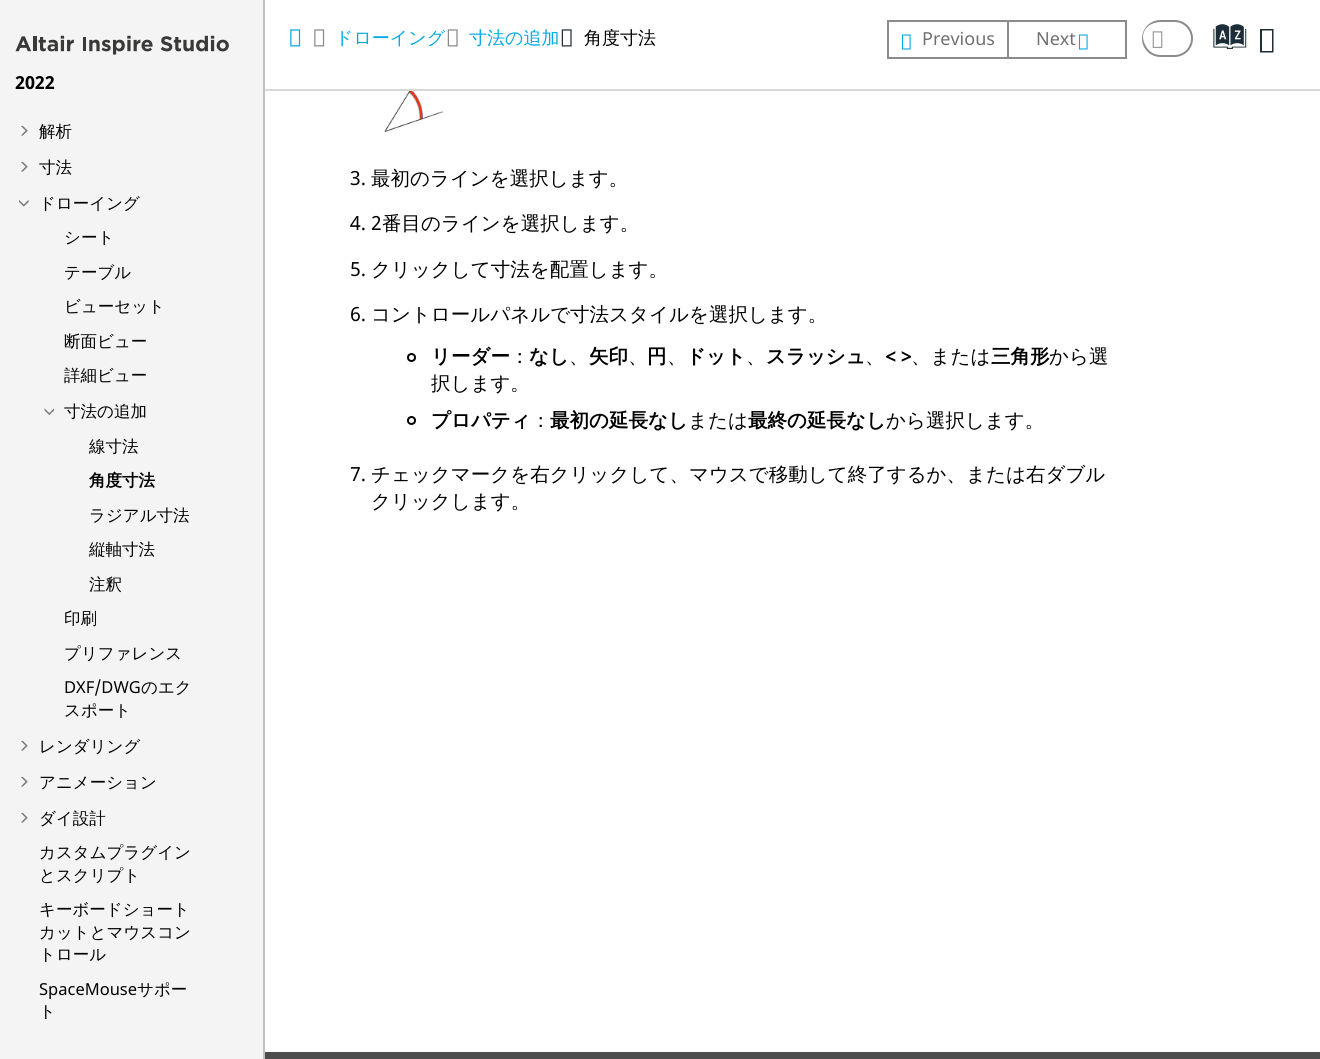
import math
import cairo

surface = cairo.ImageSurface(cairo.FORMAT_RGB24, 1320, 1059)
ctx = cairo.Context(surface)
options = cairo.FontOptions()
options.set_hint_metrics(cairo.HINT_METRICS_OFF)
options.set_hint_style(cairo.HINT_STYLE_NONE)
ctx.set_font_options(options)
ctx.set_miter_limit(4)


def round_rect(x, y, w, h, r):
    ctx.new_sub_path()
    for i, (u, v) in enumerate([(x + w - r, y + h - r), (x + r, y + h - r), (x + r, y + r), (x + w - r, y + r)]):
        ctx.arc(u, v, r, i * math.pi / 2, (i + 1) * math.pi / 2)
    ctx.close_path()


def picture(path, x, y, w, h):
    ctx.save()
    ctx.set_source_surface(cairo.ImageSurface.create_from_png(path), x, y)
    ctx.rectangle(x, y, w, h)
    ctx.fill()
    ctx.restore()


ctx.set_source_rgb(1, 1, 1)
ctx.paint()
ctx.set_source_rgb(0.957, 0.957, 0.957)
ctx.rectangle(0, 0, 263, 1059)
ctx.fill()
ctx.set_source_rgb(0.753, 0.753, 0.753)
ctx.rectangle(263, 0, 2, 1059)
ctx.fill()
picture("img1.png", 15, 35, 214, 20)
ctx.select_font_face("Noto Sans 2", cairo.FONT_SLANT_NORMAL, cairo.FONT_WEIGHT_BOLD)
ctx.set_font_size(18)
ctx.set_source_rgb(0, 0, 0)
ctx.move_to(15, 89)
ctx.show_text("2022")
picture("img2.png", 21, 125, 7, 11)
ctx.select_font_face("WenQuanYi Zen Hei Medium")
ctx.set_font_size(16.5)
ctx.move_to(39, 137)
ctx.show_text("解析")
picture("img2.png", 21, 161, 7, 11)
ctx.move_to(39, 173)
ctx.show_text("寸法")
picture("img3.png", 19, 200, 10, 7)
ctx.move_to(39, 209)
ctx.show_text("ドローイング")
ctx.move_to(64, 243)
ctx.show_text("シート")
ctx.move_to(64, 278)
ctx.show_text("テーブル")
ctx.move_to(64, 312)
ctx.show_text("ビューセット")
ctx.move_to(64, 347)
ctx.show_text("断面ビュー")
ctx.move_to(64, 381)
ctx.show_text("詳細ビュー")
picture("img4.png", 44, 408, 11, 7)
ctx.move_to(64, 417)
ctx.show_text("寸法の追加")
ctx.move_to(89, 452)
ctx.show_text("線寸法")
ctx.select_font_face("WenQuanYi Zen Hei", cairo.FONT_SLANT_NORMAL, cairo.FONT_WEIGHT_BOLD)
ctx.move_to(89, 486)
ctx.show_text("角度寸法")
ctx.select_font_face("WenQuanYi Zen Hei Medium")
ctx.move_to(89, 521)
ctx.show_text("ラジアル寸法")
ctx.move_to(89, 555)
ctx.show_text("縦軸寸法")
ctx.move_to(89, 590)
ctx.show_text("注釈")
ctx.move_to(64, 624)
ctx.show_text("印刷")
ctx.move_to(64, 659)
ctx.show_text("プリファレンス")
ctx.select_font_face("Noto Sans")
ctx.move_to(64, 693)
ctx.show_text("DXF/DWG")
ctx.select_font_face("WenQuanYi Zen Hei Medium")
ctx.move_to(141, 693)
ctx.show_text("のエク")
ctx.move_to(64, 716)
ctx.show_text("スポート")
picture("img2.png", 21, 740, 7, 11)
ctx.move_to(39, 752)
ctx.show_text("レンダリング")
picture("img2.png", 21, 776, 7, 11)
ctx.move_to(39, 788)
ctx.show_text("アニメーション")
picture("img2.png", 21, 812, 7, 11)
ctx.move_to(39, 824)
ctx.show_text("ダイ設計")
ctx.move_to(39, 858)
ctx.show_text("カスタムプラグイン")
ctx.move_to(39, 881)
ctx.show_text("とスクリプト")
ctx.move_to(39, 915)
ctx.show_text("キーボードショート")
ctx.move_to(39, 938)
ctx.show_text("カットとマウスコン")
ctx.move_to(39, 960)
ctx.show_text("トロール")
ctx.select_font_face("Noto Sans")
ctx.move_to(39, 995)
ctx.show_text("SpaceMouse")
ctx.select_font_face("WenQuanYi Zen Hei Medium")
ctx.move_to(137, 995)
ctx.show_text("サポー")
ctx.move_to(39, 1017)
ctx.show_text("ト")
ctx.set_source_rgb(0.847, 0.847, 0.847)
ctx.rectangle(265, 89, 1055, 2)
ctx.fill()
picture("img5.png", 290, 29, 11, 18)
picture("img6.png", 314, 29, 11, 18)
ctx.set_font_size(18)
ctx.set_source_rgb(0, 0.667, 0.902)
ctx.move_to(335, 44)
ctx.show_text("ドローイング")
picture("img7.png", 447, 29, 11, 18)
ctx.move_to(469, 44)
ctx.show_text("寸法の追加")
picture("img8.png", 561, 29, 11, 18)
ctx.set_source_rgb(0, 0, 0)
ctx.move_to(584, 44)
ctx.show_text("角度寸法")
ctx.set_source_rgb(0.545, 0.545, 0.545)
ctx.rectangle(887, 20, 120, 2)
ctx.fill()
ctx.rectangle(887, 57, 120, 2)
ctx.fill()
ctx.rectangle(887, 20, 2, 39)
ctx.fill()
picture("img9.png", 901, 34, 10, 16)
ctx.select_font_face("Noto Sans")
ctx.set_source_rgb(0.439, 0.439, 0.439)
ctx.move_to(922, 45)
ctx.show_text("Previous")
ctx.rectangle(1008, 21, 118, 37)
ctx.set_source_rgb(0.545, 0.545, 0.545)
ctx.stroke()
ctx.set_source_rgb(0.439, 0.439, 0.439)
ctx.move_to(1036, 45)
ctx.show_text("Next")
picture("img9.png", 1078, 34, 10, 16)
round_rect(1143, 21, 49, 35, 17.5)
ctx.set_source_rgb(0.545, 0.545, 0.545)
ctx.stroke()
ctx.set_source_rgb(1, 1, 1)
round_rect(1143, 23, 30, 28, 14)
ctx.fill()
picture("img10.png", 1152, 31, 11, 17)
ctx.select_font_face("Oxygen")
ctx.set_font_size(35)
ctx.set_source_rgb(0.114, 0.18, 0.22)
ctx.move_to(1217, 53)
ctx.show_text("a")
ctx.new_path()
ctx.move_to(1260, 52.5)
ctx.line_to(1260, 29)
ctx.line_to(1273.5, 29)
ctx.line_to(1273.5, 52.5)
ctx.close_path()
ctx.move_to(1262, 51)
ctx.line_to(1272, 51)
ctx.line_to(1272, 30.5)
ctx.line_to(1262, 30.5)
ctx.close_path()
ctx.fill()
picture("img11.png", 384, 91, 60, 41)
ctx.select_font_face("Noto Sans")
ctx.set_font_size(19.5)
ctx.set_source_rgb(0, 0, 0)
ctx.move_to(350, 185)
ctx.show_text("3.")
ctx.select_font_face("WenQuanYi Zen Hei Medium")
ctx.move_to(371, 185)
ctx.show_text("最初のラインを選択します。")
ctx.select_font_face("Noto Sans")
ctx.move_to(350, 230)
ctx.show_text("4. 2")
ctx.select_font_face("WenQuanYi Zen Hei Medium")
ctx.move_to(382, 230)
ctx.show_text("番目のラインを選択します。")
ctx.select_font_face("Noto Sans")
ctx.move_to(350, 276)
ctx.show_text("5.")
ctx.select_font_face("WenQuanYi Zen Hei Medium")
ctx.move_to(371, 276)
ctx.show_text("クリックして寸法を配置します。")
ctx.select_font_face("Noto Sans")
ctx.move_to(350, 321)
ctx.show_text("6.")
ctx.select_font_face("WenQuanYi Zen Hei Medium")
ctx.move_to(371, 321)
ctx.show_text("コントロールパネルで寸法スタイルを選択します。")
ctx.new_path()
ctx.arc(411.5, 357.5, 3.5, 0, 2 * math.pi)
ctx.stroke()
ctx.select_font_face("WenQuanYi Zen Hei", cairo.FONT_SLANT_NORMAL, cairo.FONT_WEIGHT_BOLD)
ctx.move_to(431, 363)
ctx.show_text("リーダー")
ctx.select_font_face("WenQuanYi Zen Hei Medium")
ctx.move_to(510, 363)
ctx.show_text("：")
ctx.select_font_face("WenQuanYi Zen Hei", cairo.FONT_SLANT_NORMAL, cairo.FONT_WEIGHT_BOLD)
ctx.move_to(529, 363)
ctx.show_text("なし")
ctx.move_to(589, 363)
ctx.show_text("矢印")
ctx.move_to(647, 363)
ctx.show_text("円")
ctx.move_to(686, 363)
ctx.show_text("ドット")
ctx.move_to(766, 363)
ctx.show_text("スラッシュ")
ctx.select_font_face("Noto Sans", cairo.FONT_SLANT_NORMAL, cairo.FONT_WEIGHT_BOLD)
ctx.move_to(885, 363)
ctx.show_text("< >")
ctx.select_font_face("WenQuanYi Zen Hei Medium")
ctx.move_to(911, 363)
ctx.show_text("、または")
ctx.select_font_face("WenQuanYi Zen Hei", cairo.FONT_SLANT_NORMAL, cairo.FONT_WEIGHT_BOLD)
ctx.move_to(991, 363)
ctx.show_text("三角形")
ctx.select_font_face("WenQuanYi Zen Hei Medium")
ctx.move_to(1049, 363)
ctx.show_text("から選")
ctx.move_to(569, 363)
ctx.show_text("、")
ctx.move_to(628, 363)
ctx.show_text("、")
ctx.move_to(667, 363)
ctx.show_text("、")
ctx.move_to(746, 363)
ctx.show_text("、")
ctx.move_to(865, 363)
ctx.show_text("、")
ctx.move_to(431, 390)
ctx.show_text("択します。")
ctx.new_path()
ctx.arc(411.5, 420.5, 3.5, 0, 2 * math.pi)
ctx.stroke()
ctx.select_font_face("WenQuanYi Zen Hei", cairo.FONT_SLANT_NORMAL, cairo.FONT_WEIGHT_BOLD)
ctx.move_to(431, 427)
ctx.show_text("プロパティ")
ctx.select_font_face("WenQuanYi Zen Hei Medium")
ctx.move_to(531, 427)
ctx.show_text("：")
ctx.select_font_face("WenQuanYi Zen Hei", cairo.FONT_SLANT_NORMAL, cairo.FONT_WEIGHT_BOLD)
ctx.move_to(550, 427)
ctx.show_text("最初の延長なし")
ctx.select_font_face("WenQuanYi Zen Hei Medium")
ctx.move_to(688, 427)
ctx.show_text("または")
ctx.select_font_face("WenQuanYi Zen Hei", cairo.FONT_SLANT_NORMAL, cairo.FONT_WEIGHT_BOLD)
ctx.move_to(748, 427)
ctx.show_text("最終の延長なし")
ctx.select_font_face("WenQuanYi Zen Hei Medium")
ctx.move_to(886, 427)
ctx.show_text("から選択します。")
ctx.select_font_face("Noto Sans")
ctx.move_to(350, 481)
ctx.show_text("7.")
ctx.select_font_face("WenQuanYi Zen Hei Medium")
ctx.move_to(371, 481)
ctx.show_text("チェックマークを右クリックして、マウスで移動して終了するか、または右ダブル")
ctx.move_to(371, 508)
ctx.show_text("クリックします。")
ctx.set_source_rgb(0.302, 0.302, 0.302)
ctx.rectangle(265, 1052, 1055, 7)
ctx.fill()
surface.write_to_png("page.png")
